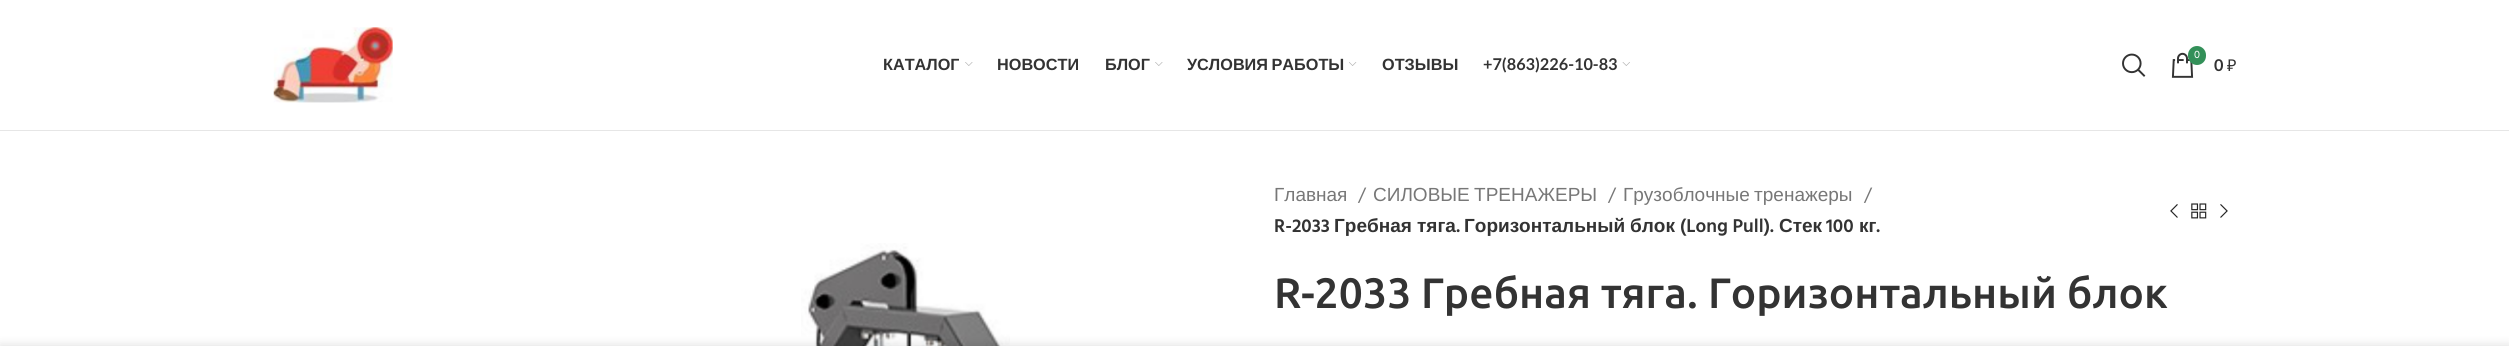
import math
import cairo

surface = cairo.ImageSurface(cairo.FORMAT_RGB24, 2509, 346)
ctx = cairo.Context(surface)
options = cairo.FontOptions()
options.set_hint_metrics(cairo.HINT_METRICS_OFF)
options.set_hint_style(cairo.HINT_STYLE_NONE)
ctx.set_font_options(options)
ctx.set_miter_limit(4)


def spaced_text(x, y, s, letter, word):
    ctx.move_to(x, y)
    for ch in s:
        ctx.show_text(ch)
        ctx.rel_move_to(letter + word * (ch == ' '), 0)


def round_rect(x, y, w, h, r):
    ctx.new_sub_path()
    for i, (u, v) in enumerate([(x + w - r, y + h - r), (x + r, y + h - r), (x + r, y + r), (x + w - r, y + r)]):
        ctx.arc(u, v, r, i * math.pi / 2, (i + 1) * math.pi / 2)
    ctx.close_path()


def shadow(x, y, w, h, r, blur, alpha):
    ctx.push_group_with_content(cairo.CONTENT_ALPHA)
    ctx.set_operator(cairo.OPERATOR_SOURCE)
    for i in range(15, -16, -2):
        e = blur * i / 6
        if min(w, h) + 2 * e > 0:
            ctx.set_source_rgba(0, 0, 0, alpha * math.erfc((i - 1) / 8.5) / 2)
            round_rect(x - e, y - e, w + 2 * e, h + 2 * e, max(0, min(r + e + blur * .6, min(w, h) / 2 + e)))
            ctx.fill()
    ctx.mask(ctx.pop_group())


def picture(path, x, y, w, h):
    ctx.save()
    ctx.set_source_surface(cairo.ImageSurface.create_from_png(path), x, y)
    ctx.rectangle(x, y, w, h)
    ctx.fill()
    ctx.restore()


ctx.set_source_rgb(1, 1, 1)
ctx.paint()
ctx.set_source_rgb(0.902, 0.902, 0.902)
ctx.rectangle(0, 130, 2509, 1)
ctx.fill()
picture("img1.png", 273, 27, 120, 76)
ctx.select_font_face("Liberation Sans", cairo.FONT_SLANT_NORMAL, cairo.FONT_WEIGHT_BOLD)
ctx.set_font_size(16.25)
ctx.set_source_rgb(0.2, 0.2, 0.2)
ctx.move_to(883, 70)
ctx.show_text("КАТАЛОГ")
picture("img2.png", 965, 62, 8, 4)
ctx.move_to(997, 70)
ctx.show_text("НОВОСТИ")
ctx.move_to(1105, 70)
ctx.show_text("БЛОГ")
picture("img2.png", 1155, 62, 8, 4)
spaced_text(1187, 70, "УСЛОВИЯ РАБОТЫ", 0, -1)
picture("img3.png", 1349, 62, 8, 4)
ctx.move_to(1382, 70)
ctx.show_text("ОТЗЫВЫ")
ctx.select_font_face("Lato", cairo.FONT_SLANT_NORMAL, cairo.FONT_WEIGHT_BOLD)
ctx.move_to(1483, 70)
ctx.show_text("+7(863)226-10-83")
picture("img4.png", 1622, 62, 8, 4)
picture("img5.png", 2122, 53, 24, 24)
picture("img6.png", 2171, 52, 23, 26)
ctx.set_source_rgb(0.2, 0.565, 0.349)
round_rect(2188, 46, 18, 19, 9)
ctx.fill()
ctx.select_font_face("Hind")
ctx.set_font_size(11)
ctx.set_source_rgb(1, 1, 1)
ctx.move_to(2194, 58)
ctx.show_text("0")
ctx.select_font_face("Lato", cairo.FONT_SLANT_NORMAL, cairo.FONT_WEIGHT_BOLD)
ctx.set_font_size(16.25)
ctx.set_source_rgb(0.2, 0.2, 0.2)
ctx.move_to(2214, 71)
ctx.show_text("0")
ctx.select_font_face("Noto Sans")
ctx.move_to(2227, 71)
ctx.show_text("₽")
picture("img7.png", 801, 243, 209, 103)
ctx.select_font_face("Liberation Sans")
ctx.set_font_size(19)
ctx.set_source_rgb(0.467, 0.467, 0.467)
ctx.move_to(1274, 201)
ctx.show_text("Главная")
ctx.select_font_face("Hind")
ctx.move_to(1358, 201)
ctx.show_text("/")
ctx.select_font_face("Liberation Sans")
spaced_text(1373, 201, "СИЛОВЫЕ ТРЕНАЖЕРЫ", 0, -1)
ctx.select_font_face("Hind")
ctx.move_to(1608, 201)
ctx.show_text("/")
ctx.select_font_face("Liberation Sans")
spaced_text(1623, 201, "Грузоблочные тренажеры", 0, -1)
ctx.select_font_face("Hind")
ctx.move_to(1864, 201)
ctx.show_text("/")
ctx.select_font_face("Hind SemiBold")
ctx.set_source_rgb(0.2, 0.2, 0.2)
ctx.move_to(1274, 232)
ctx.show_text("R-2033")
ctx.select_font_face("Liberation Sans", cairo.FONT_SLANT_NORMAL, cairo.FONT_WEIGHT_BOLD)
ctx.move_to(1334, 232)
ctx.show_text("Гребная")
ctx.move_to(1417, 232)
ctx.show_text("тяга")
ctx.select_font_face("Hind SemiBold")
ctx.move_to(1456, 232)
ctx.show_text(".")
ctx.select_font_face("Liberation Sans", cairo.FONT_SLANT_NORMAL, cairo.FONT_WEIGHT_BOLD)
ctx.move_to(1464, 232)
ctx.show_text("Горизонтальный")
ctx.move_to(1630, 232)
ctx.show_text("блок")
ctx.select_font_face("Hind SemiBold")
ctx.move_to(1680, 232)
ctx.show_text("(Long Pull).")
ctx.select_font_face("Liberation Sans", cairo.FONT_SLANT_NORMAL, cairo.FONT_WEIGHT_BOLD)
ctx.move_to(1779, 232)
ctx.show_text("Стек")
ctx.select_font_face("Hind SemiBold")
ctx.move_to(1826, 232)
ctx.show_text("100")
ctx.select_font_face("Liberation Sans", cairo.FONT_SLANT_NORMAL, cairo.FONT_WEIGHT_BOLD)
ctx.move_to(1859, 232)
ctx.show_text("кг")
ctx.select_font_face("Hind SemiBold")
ctx.move_to(1876, 232)
ctx.show_text(".")
picture("img8.png", 2170, 204, 8, 14)
picture("img9.png", 2191, 203, 16, 16)
picture("img10.png", 2220, 204, 8, 14)
ctx.select_font_face("Ubuntu Medium")
ctx.set_font_size(42.5)
ctx.move_to(1274, 308)
ctx.show_text("R-2033 Гребная тяга. Горизонтальный блок")
ctx.set_source_rgb(0, 0, 0)
shadow(0, 346, 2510, 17, 0, 5.5, 0.14)
surface.write_to_png("page.png")
